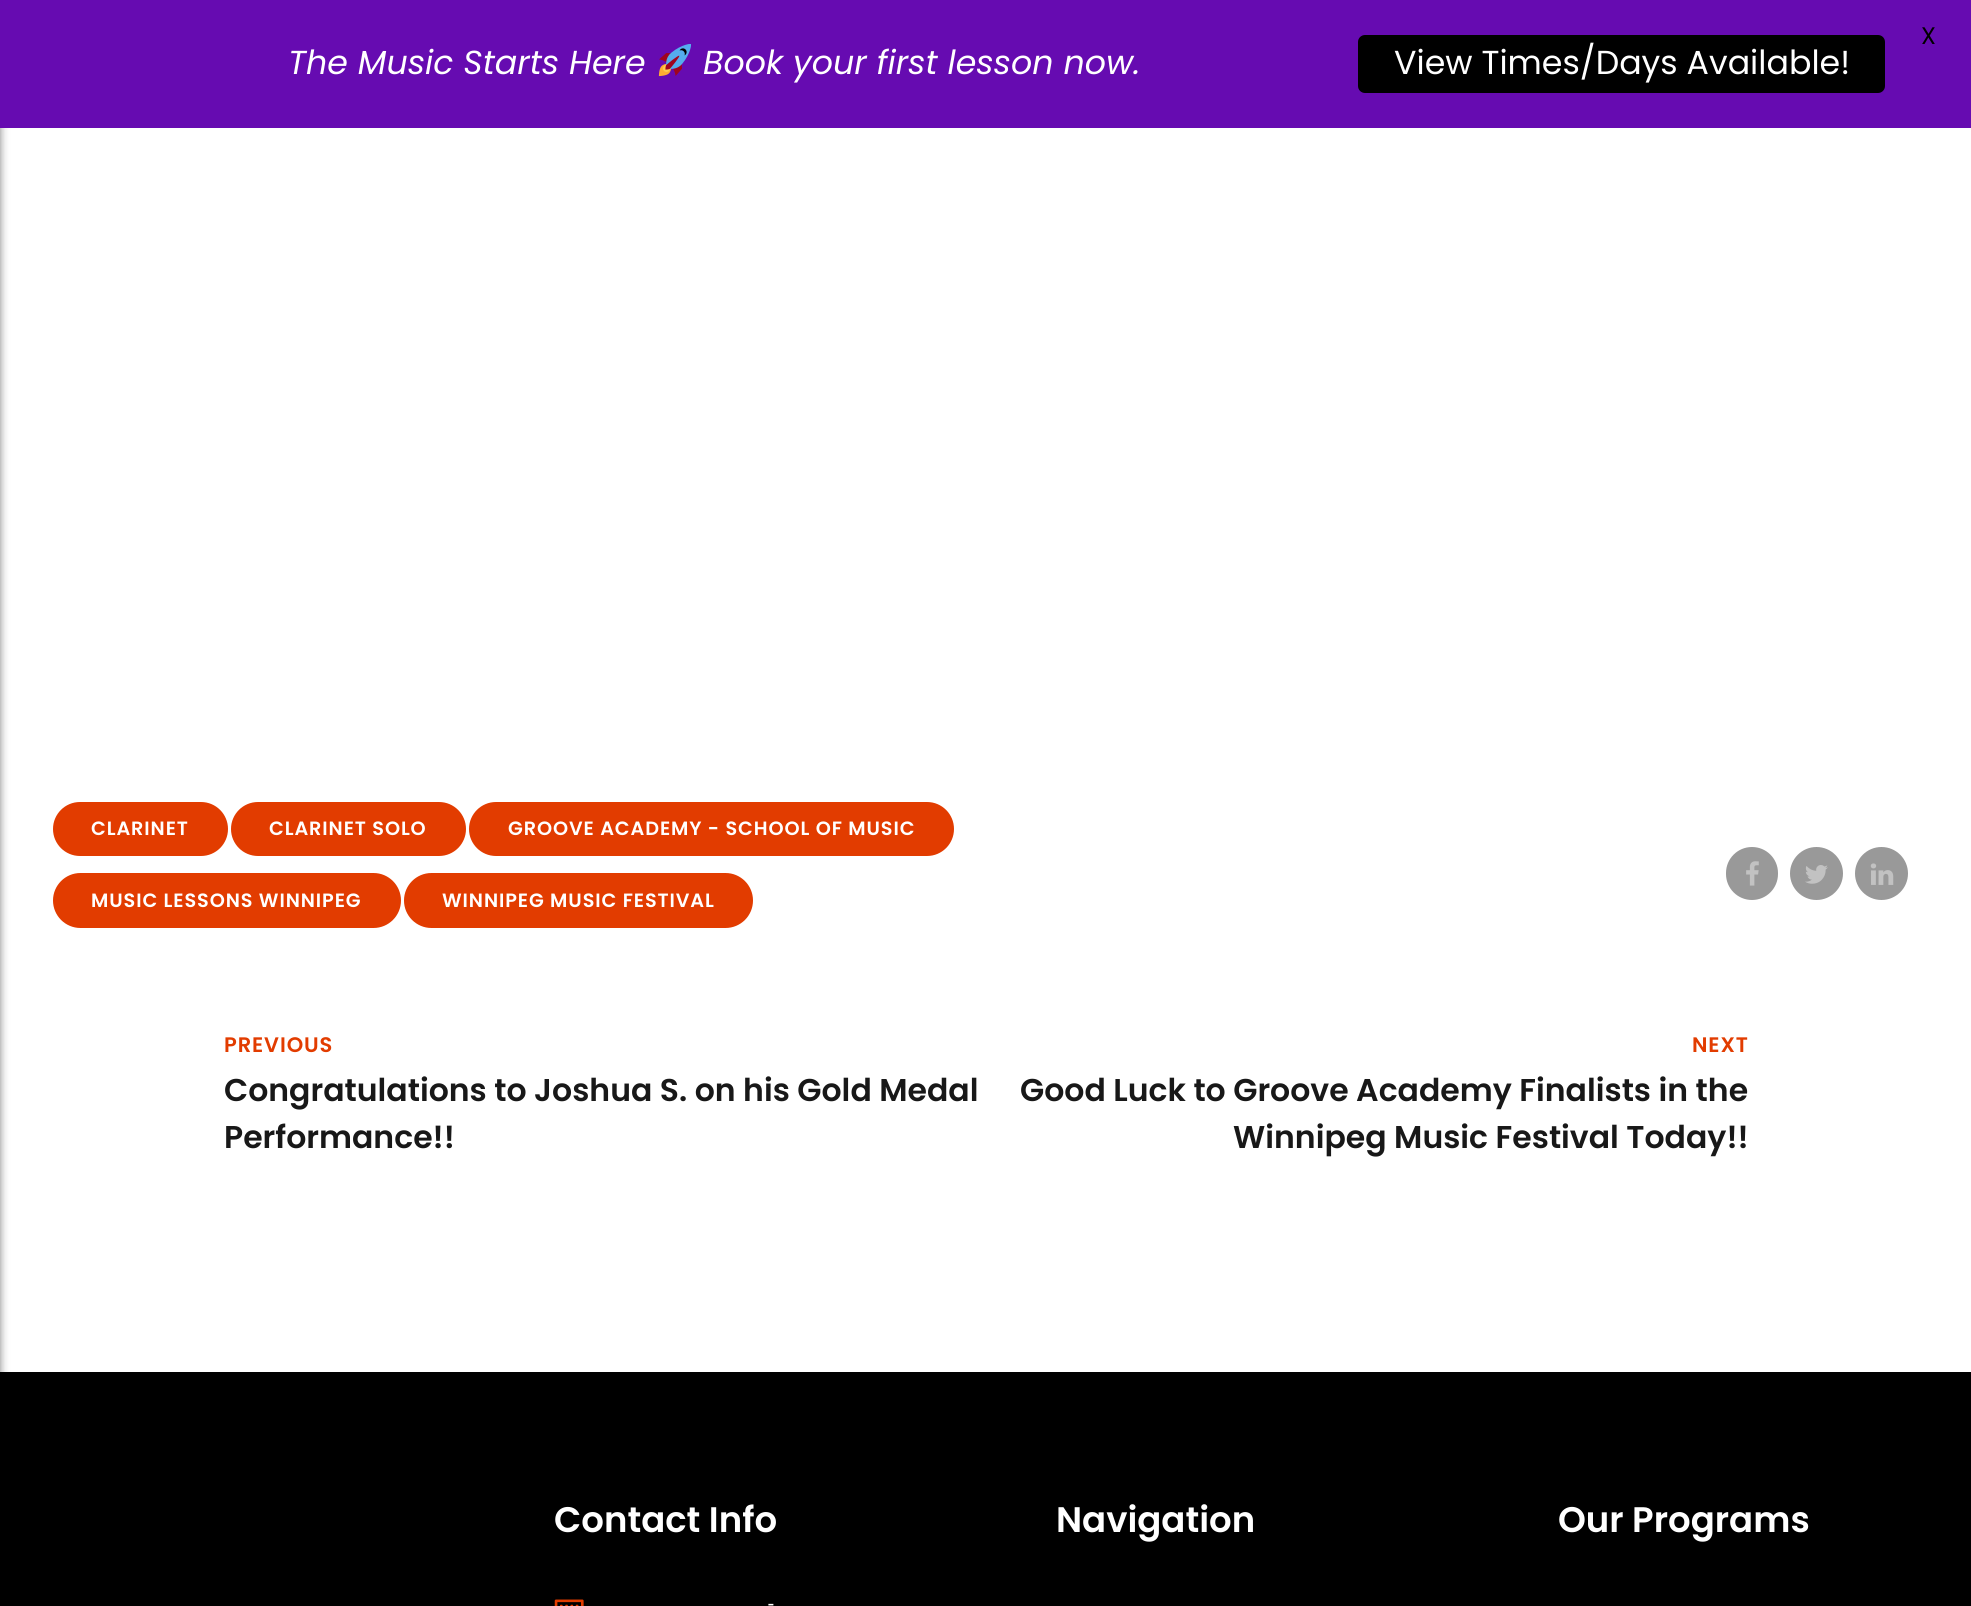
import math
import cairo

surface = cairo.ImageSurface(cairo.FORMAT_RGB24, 1971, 1606)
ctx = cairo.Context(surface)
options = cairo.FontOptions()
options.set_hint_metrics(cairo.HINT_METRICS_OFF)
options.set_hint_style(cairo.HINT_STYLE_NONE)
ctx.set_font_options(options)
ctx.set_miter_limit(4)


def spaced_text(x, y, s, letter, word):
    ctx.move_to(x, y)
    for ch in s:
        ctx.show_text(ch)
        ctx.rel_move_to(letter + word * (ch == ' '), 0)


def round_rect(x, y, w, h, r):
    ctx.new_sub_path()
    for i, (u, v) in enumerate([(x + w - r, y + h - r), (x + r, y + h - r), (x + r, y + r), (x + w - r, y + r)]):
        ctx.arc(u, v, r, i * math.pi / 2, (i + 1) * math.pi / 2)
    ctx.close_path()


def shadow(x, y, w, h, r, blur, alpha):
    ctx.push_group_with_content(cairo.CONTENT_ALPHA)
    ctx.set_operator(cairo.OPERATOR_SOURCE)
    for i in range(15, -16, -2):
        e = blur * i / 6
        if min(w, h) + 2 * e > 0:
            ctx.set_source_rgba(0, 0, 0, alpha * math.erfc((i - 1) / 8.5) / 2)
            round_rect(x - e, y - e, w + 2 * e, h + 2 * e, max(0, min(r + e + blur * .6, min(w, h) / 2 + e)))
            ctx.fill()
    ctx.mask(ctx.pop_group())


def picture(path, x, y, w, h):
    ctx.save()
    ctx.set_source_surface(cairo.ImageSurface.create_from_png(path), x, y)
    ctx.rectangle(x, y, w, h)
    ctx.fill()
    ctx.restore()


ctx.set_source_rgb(1, 1, 1)
ctx.paint()
ctx.set_source_rgb(0, 0, 0)
ctx.rectangle(0, 1372, 1971, 234)
ctx.fill()
ctx.set_source_rgb(0, 0, 0)
shadow(-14, 0, 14, 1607, 0, 4.5, 0.5)
ctx.set_source_rgb(0.4, 0.043, 0.694)
ctx.rectangle(0, 0, 1971, 128)
ctx.fill()
ctx.select_font_face("Poppins")
ctx.set_font_size(24)
ctx.set_source_rgb(0, 0, 0)
ctx.move_to(1921, 44)
ctx.show_text("X")
ctx.select_font_face("Poppins", cairo.FONT_SLANT_ITALIC)
ctx.set_font_size(33.25)
ctx.set_source_rgb(1, 1, 1)
ctx.move_to(288, 74)
ctx.show_text("The Music Starts Here")
picture("img1.png", 658, 44, 33, 33)
ctx.move_to(703, 74)
ctx.show_text("Book your first lesson now.")
ctx.set_source_rgb(0, 0, 0)
round_rect(1358, 35, 527, 58, 7)
ctx.fill()
ctx.select_font_face("Poppins")
ctx.set_source_rgb(1, 1, 1)
ctx.move_to(1394, 74)
ctx.show_text("View Times/Days Available!")
ctx.set_source_rgb(0.886, 0.235, 0)
round_rect(53, 802, 175, 54, 27)
ctx.fill()
ctx.select_font_face("Poppins SemiBold")
ctx.set_font_size(19.25)
ctx.set_source_rgb(1, 1, 1)
spaced_text(91, 835, "CLARINET", 0.9, 0)
ctx.set_source_rgb(0.886, 0.235, 0)
round_rect(231, 802, 235, 54, 27)
ctx.fill()
ctx.set_source_rgb(1, 1, 1)
spaced_text(269, 835, "CLARINET SOLO", 0.9, 0)
ctx.set_source_rgb(0.886, 0.235, 0)
round_rect(469, 802, 485, 54, 27)
ctx.fill()
ctx.set_source_rgb(1, 1, 1)
spaced_text(508, 835, "GROOVE ACADEMY - SCHOOL OF MUSIC", 0.9, 0)
ctx.set_source_rgb(0.886, 0.235, 0)
round_rect(53, 873, 348, 55, 27.5)
ctx.fill()
ctx.set_source_rgb(1, 1, 1)
spaced_text(91, 907, "MUSIC LESSONS WINNIPEG", 0.9, 0)
ctx.set_source_rgb(0.886, 0.235, 0)
round_rect(404, 873, 349, 55, 27.5)
ctx.fill()
ctx.set_source_rgb(1, 1, 1)
spaced_text(442, 907, "WINNIPEG MUSIC FESTIVAL", 0.9, 0)
ctx.set_source_rgb(0.6, 0.6, 0.6)
round_rect(1726, 847, 52, 53, 26)
ctx.fill()
picture("img2.png", 1746, 861, 13, 25)
ctx.arc(1816.5, 873.5, 26.5, 0, 2 * math.pi)
ctx.fill()
picture("img3.png", 1805, 865, 23, 19)
ctx.arc(1881.5, 873.5, 26.5, 0, 2 * math.pi)
ctx.fill()
picture("img4.png", 1870, 863, 24, 22)
ctx.set_font_size(21)
ctx.set_source_rgb(0.886, 0.235, 0)
spaced_text(224, 1052, "PREVIOUS", 0.9, 0)
ctx.set_font_size(31.5)
ctx.set_source_rgb(0.094, 0.094, 0.094)
ctx.move_to(224, 1101)
ctx.show_text("Congratulations to Joshua S. on his Gold Medal")
ctx.move_to(224, 1148)
ctx.show_text("Performance!!")
ctx.set_font_size(21)
ctx.set_source_rgb(0.886, 0.235, 0)
spaced_text(1692, 1052, "NEXT", 0.9, 0)
ctx.set_font_size(31.5)
ctx.set_source_rgb(0.094, 0.094, 0.094)
ctx.move_to(1020, 1101)
ctx.show_text("Good Luck to Groove Academy Finalists in the")
ctx.move_to(1233, 1148)
ctx.show_text("Winnipeg Music Festival Today!!")
ctx.set_font_size(35.5)
ctx.set_source_rgb(1, 1, 1)
ctx.move_to(554, 1532)
ctx.show_text("Contact Info")
picture("img5.png", 554, 1599, 30, 7)
ctx.select_font_face("Roboto")
ctx.set_font_size(21)
ctx.move_to(768, 1611)
ctx.show_text("-")
ctx.select_font_face("Poppins SemiBold")
ctx.set_font_size(35.5)
ctx.move_to(1056, 1532)
ctx.show_text("Navigation")
ctx.move_to(1558, 1532)
ctx.show_text("Our Programs")
surface.write_to_png("page.png")
